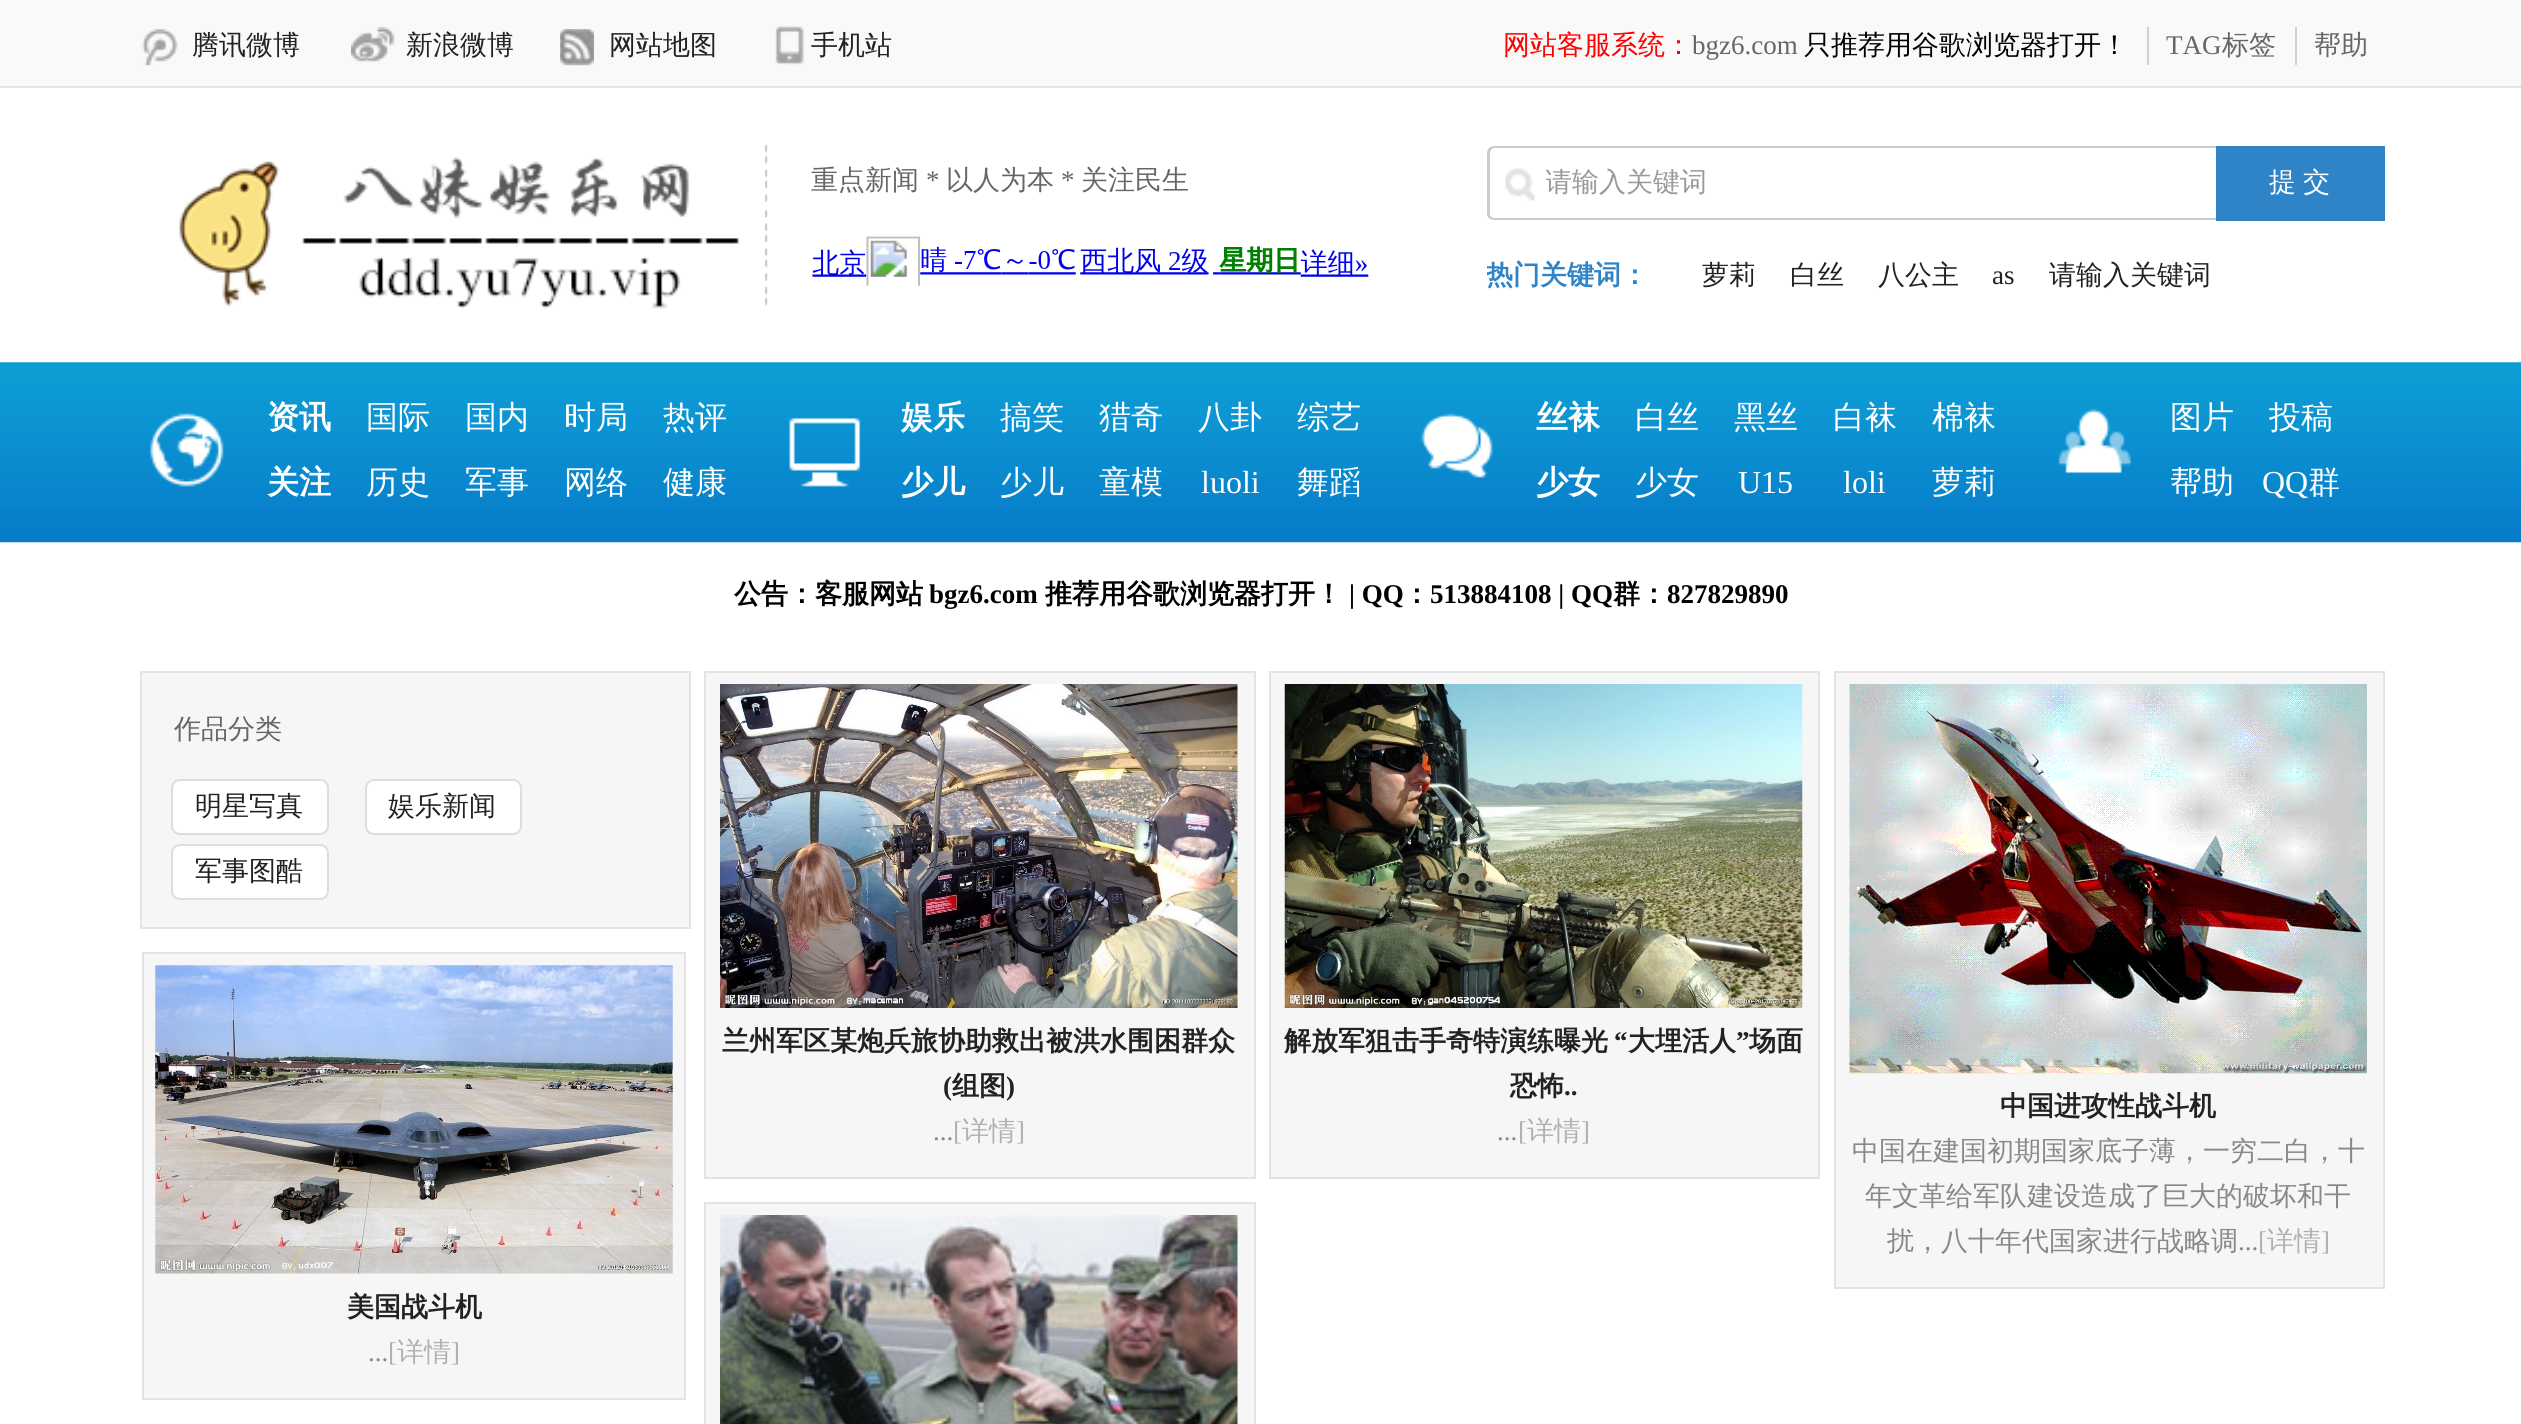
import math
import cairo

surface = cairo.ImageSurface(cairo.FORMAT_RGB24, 2521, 1424)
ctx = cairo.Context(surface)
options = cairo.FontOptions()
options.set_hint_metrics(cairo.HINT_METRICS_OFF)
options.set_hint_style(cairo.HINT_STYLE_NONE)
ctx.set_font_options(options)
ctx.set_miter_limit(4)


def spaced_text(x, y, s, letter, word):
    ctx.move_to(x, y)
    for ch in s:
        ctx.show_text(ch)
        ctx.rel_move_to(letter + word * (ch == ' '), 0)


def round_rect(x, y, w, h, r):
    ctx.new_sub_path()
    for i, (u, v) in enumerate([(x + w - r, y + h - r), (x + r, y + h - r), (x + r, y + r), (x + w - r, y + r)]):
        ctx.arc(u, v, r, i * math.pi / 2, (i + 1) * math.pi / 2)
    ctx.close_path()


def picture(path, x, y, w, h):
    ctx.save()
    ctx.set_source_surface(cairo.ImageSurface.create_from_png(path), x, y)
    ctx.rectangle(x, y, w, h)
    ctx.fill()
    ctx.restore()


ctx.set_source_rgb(1, 1, 1)
ctx.paint()
ctx.set_source_rgb(0.976, 0.976, 0.976)
ctx.rectangle(0, 0, 2521, 86)
ctx.fill()
ctx.set_source_rgb(0.894, 0.894, 0.894)
ctx.rectangle(0, 86, 2521, 2)
ctx.fill()
picture("img1.png", 142, 29, 36, 37)
ctx.select_font_face("WenQuanYi Zen Hei Medium")
ctx.set_font_size(27)
ctx.set_source_rgb(0.133, 0.133, 0.133)
ctx.move_to(192, 54)
ctx.show_text("腾讯微博")
picture("img2.png", 351, 27, 44, 35)
ctx.move_to(406, 54)
ctx.show_text("新浪微博")
picture("img3.png", 560, 29, 34, 37)
ctx.move_to(609, 54)
ctx.show_text("网站地图")
picture("img4.png", 775, 26, 29, 39)
ctx.move_to(811, 54)
ctx.show_text("手机站")
ctx.set_source_rgb(0.816, 0.816, 0.816)
ctx.rectangle(2147, 27, 2, 38)
ctx.fill()
ctx.set_source_rgb(1, 0, 0)
ctx.move_to(1503, 54)
ctx.show_text("网站客服系统：")
ctx.select_font_face("Liberation Serif")
ctx.set_source_rgb(0.4, 0.4, 0.4)
ctx.move_to(1692, 54)
ctx.show_text("bgz6.com")
ctx.select_font_face("WenQuanYi Zen Hei Medium")
ctx.set_source_rgb(0, 0, 0)
ctx.move_to(1804, 54)
ctx.show_text("只推荐用谷歌浏览器打开！")
ctx.set_source_rgb(0.816, 0.816, 0.816)
ctx.rectangle(2295, 27, 2, 38)
ctx.fill()
ctx.select_font_face("Liberation Serif")
ctx.set_source_rgb(0.4, 0.4, 0.4)
ctx.move_to(2166, 54)
ctx.show_text("TAG")
ctx.select_font_face("WenQuanYi Zen Hei Medium")
ctx.move_to(2222, 54)
ctx.show_text("标签")
ctx.move_to(2314, 54)
ctx.show_text("帮助")
picture("img5.png", 765, 144, 3, 162)
picture("img6.png", 179, 157, 560, 152)
ctx.move_to(811, 189)
ctx.show_text("重点新闻")
ctx.select_font_face("Liberation Serif")
ctx.move_to(926, 189)
ctx.show_text("*")
ctx.select_font_face("WenQuanYi Zen Hei Medium")
ctx.move_to(946, 189)
ctx.show_text("以人为本")
ctx.select_font_face("Liberation Serif")
ctx.move_to(1061, 189)
ctx.show_text("*")
ctx.select_font_face("WenQuanYi Zen Hei Medium")
ctx.move_to(1081, 189)
ctx.show_text("关注民生")
picture("img7.png", 812, 236, 557, 50)
picture("img8.png", 1505, 168, 30, 33)
ctx.set_source_rgb(0.8, 0.8, 0.8)
ctx.set_fill_rule(cairo.FILL_RULE_EVEN_ODD)
ctx.new_path()
ctx.move_to(1494, 146)
ctx.line_to(2216, 146)
ctx.line_to(2216, 220)
ctx.line_to(1494, 220)
ctx.curve_to(1490, 220, 1487, 217, 1487, 214)
ctx.line_to(1487, 153)
ctx.curve_to(1487, 149, 1490, 146, 1494, 146)
ctx.close_path()
ctx.move_to(1494, 148)
ctx.line_to(2216, 148)
ctx.line_to(2216, 218)
ctx.line_to(1494, 218)
ctx.curve_to(1492, 218, 1490, 216, 1490, 214)
ctx.line_to(1490, 153)
ctx.curve_to(1490, 151, 1492, 148, 1494, 148)
ctx.close_path()
ctx.fill()
ctx.save()
ctx.set_fill_rule(cairo.FILL_RULE_WINDING)
ctx.rectangle(1546, 149, 666, 69)
ctx.clip()
ctx.set_source_rgb(0.6, 0.6, 0.6)
ctx.move_to(1545, 191)
ctx.show_text("请输入关键词")
ctx.restore()
ctx.set_source_rgb(0.18, 0.518, 0.78)
ctx.rectangle(2216, 146, 169, 75)
ctx.fill()
ctx.set_source_rgb(1, 1, 1)
spaced_text(2269, 191, "提 交", 0, -1)
ctx.save()
ctx.set_fill_rule(cairo.FILL_RULE_WINDING)
ctx.rectangle(1487, 241, 900, 67)
ctx.clip()
ctx.select_font_face("WenQuanYi Zen Hei", cairo.FONT_SLANT_NORMAL, cairo.FONT_WEIGHT_BOLD)
ctx.set_source_rgb(0.18, 0.518, 0.78)
ctx.move_to(1486, 284)
ctx.show_text("热门关键词：")
ctx.restore()
ctx.set_source_rgb(0.133, 0.133, 0.133)
ctx.move_to(1702, 284)
ctx.show_text("萝莉")
ctx.move_to(1790, 284)
ctx.show_text("白丝")
ctx.move_to(1878, 284)
ctx.show_text("八公主")
ctx.select_font_face("Liberation Serif")
ctx.move_to(1992, 284)
ctx.show_text("as")
ctx.select_font_face("WenQuanYi Zen Hei Medium")
ctx.move_to(2049, 284)
ctx.show_text("请输入关键词")
picture("img9.png", 0, 362, 2521, 181)
picture("img10.png", 150, 413, 74, 74)
ctx.select_font_face("WenQuanYi Zen Hei", cairo.FONT_SLANT_NORMAL, cairo.FONT_WEIGHT_BOLD)
ctx.set_font_size(32)
ctx.set_source_rgb(1, 1, 1)
ctx.move_to(267, 428)
ctx.show_text("资讯")
ctx.select_font_face("WenQuanYi Zen Hei Medium")
ctx.move_to(366, 428)
ctx.show_text("国际")
ctx.move_to(465, 428)
ctx.show_text("国内")
ctx.move_to(564, 428)
ctx.show_text("时局")
ctx.move_to(663, 428)
ctx.show_text("热评")
ctx.select_font_face("WenQuanYi Zen Hei", cairo.FONT_SLANT_NORMAL, cairo.FONT_WEIGHT_BOLD)
ctx.move_to(267, 493)
ctx.show_text("关注")
ctx.select_font_face("WenQuanYi Zen Hei Medium")
ctx.move_to(366, 493)
ctx.show_text("历史")
ctx.move_to(465, 493)
ctx.show_text("军事")
ctx.move_to(564, 493)
ctx.show_text("网络")
ctx.move_to(663, 493)
ctx.show_text("健康")
picture("img11.png", 789, 418, 72, 69)
ctx.select_font_face("WenQuanYi Zen Hei", cairo.FONT_SLANT_NORMAL, cairo.FONT_WEIGHT_BOLD)
ctx.move_to(901, 428)
ctx.show_text("娱乐")
ctx.select_font_face("WenQuanYi Zen Hei Medium")
ctx.move_to(1000, 428)
ctx.show_text("搞笑")
ctx.move_to(1099, 428)
ctx.show_text("猎奇")
ctx.move_to(1198, 428)
ctx.show_text("八卦")
ctx.move_to(1297, 428)
ctx.show_text("综艺")
ctx.select_font_face("WenQuanYi Zen Hei", cairo.FONT_SLANT_NORMAL, cairo.FONT_WEIGHT_BOLD)
ctx.move_to(901, 493)
ctx.show_text("少儿")
ctx.select_font_face("WenQuanYi Zen Hei Medium")
ctx.move_to(1000, 493)
ctx.show_text("少儿")
ctx.move_to(1099, 493)
ctx.show_text("童模")
ctx.select_font_face("Liberation Serif")
ctx.move_to(1201, 493)
ctx.show_text("luoli")
ctx.select_font_face("WenQuanYi Zen Hei Medium")
ctx.move_to(1297, 493)
ctx.show_text("舞蹈")
picture("img12.png", 1421, 413, 72, 65)
ctx.select_font_face("WenQuanYi Zen Hei", cairo.FONT_SLANT_NORMAL, cairo.FONT_WEIGHT_BOLD)
ctx.move_to(1536, 428)
ctx.show_text("丝袜")
ctx.select_font_face("WenQuanYi Zen Hei Medium")
ctx.move_to(1635, 428)
ctx.show_text("白丝")
ctx.move_to(1734, 428)
ctx.show_text("黑丝")
ctx.move_to(1833, 428)
ctx.show_text("白袜")
ctx.move_to(1932, 428)
ctx.show_text("棉袜")
ctx.select_font_face("WenQuanYi Zen Hei", cairo.FONT_SLANT_NORMAL, cairo.FONT_WEIGHT_BOLD)
ctx.move_to(1536, 493)
ctx.show_text("少女")
ctx.select_font_face("WenQuanYi Zen Hei Medium")
ctx.move_to(1635, 493)
ctx.show_text("少女")
ctx.select_font_face("Liberation Serif")
ctx.move_to(1738, 493)
ctx.show_text("U15")
ctx.move_to(1843, 493)
ctx.show_text("loli")
ctx.select_font_face("WenQuanYi Zen Hei Medium")
ctx.move_to(1932, 493)
ctx.show_text("萝莉")
picture("img13.png", 2058, 409, 74, 65)
ctx.move_to(2170, 428)
ctx.show_text("图片")
ctx.move_to(2269, 428)
ctx.show_text("投稿")
ctx.move_to(2170, 493)
ctx.show_text("帮助")
ctx.select_font_face("Liberation Serif")
ctx.move_to(2262, 493)
ctx.show_text("QQ")
ctx.select_font_face("WenQuanYi Zen Hei Medium")
ctx.move_to(2308, 493)
ctx.show_text("群")
ctx.select_font_face("WenQuanYi Zen Hei", cairo.FONT_SLANT_NORMAL, cairo.FONT_WEIGHT_BOLD)
ctx.set_font_size(27)
ctx.set_source_rgb(0, 0, 0)
ctx.move_to(734, 603)
ctx.show_text("公告：客服网站")
ctx.select_font_face("Liberation Serif", cairo.FONT_SLANT_NORMAL, cairo.FONT_WEIGHT_BOLD)
ctx.move_to(929, 603)
ctx.show_text("bgz6.com")
ctx.select_font_face("WenQuanYi Zen Hei", cairo.FONT_SLANT_NORMAL, cairo.FONT_WEIGHT_BOLD)
ctx.move_to(1045, 603)
ctx.show_text("推荐用谷歌浏览器打开！")
ctx.select_font_face("Liberation Serif", cairo.FONT_SLANT_NORMAL, cairo.FONT_WEIGHT_BOLD)
ctx.move_to(1349, 603)
ctx.show_text("| QQ")
ctx.select_font_face("WenQuanYi Zen Hei", cairo.FONT_SLANT_NORMAL, cairo.FONT_WEIGHT_BOLD)
ctx.move_to(1403, 603)
ctx.show_text("：")
ctx.select_font_face("Liberation Serif", cairo.FONT_SLANT_NORMAL, cairo.FONT_WEIGHT_BOLD)
ctx.move_to(1430, 603)
ctx.show_text("513884108 | QQ")
ctx.select_font_face("WenQuanYi Zen Hei", cairo.FONT_SLANT_NORMAL, cairo.FONT_WEIGHT_BOLD)
ctx.move_to(1613, 603)
ctx.show_text("群：")
ctx.select_font_face("Liberation Serif", cairo.FONT_SLANT_NORMAL, cairo.FONT_WEIGHT_BOLD)
ctx.move_to(1667, 603)
ctx.show_text("827829890")
ctx.set_source_rgb(0.961, 0.961, 0.961)
ctx.rectangle(141, 672, 549, 256)
ctx.fill_preserve()
ctx.set_source_rgb(0.89, 0.89, 0.89)
ctx.stroke()
ctx.select_font_face("WenQuanYi Zen Hei Medium")
ctx.set_source_rgb(0.4, 0.4, 0.4)
ctx.move_to(174, 738)
ctx.show_text("作品分类")
ctx.set_source_rgb(1, 1, 1)
round_rect(172, 780, 156, 54, 8)
ctx.fill_preserve()
ctx.set_source_rgb(0.867, 0.867, 0.867)
ctx.stroke()
ctx.set_source_rgb(0.133, 0.133, 0.133)
ctx.move_to(195, 815)
ctx.show_text("明星写真")
ctx.set_source_rgb(1, 1, 1)
round_rect(366, 780, 155, 54, 8)
ctx.fill_preserve()
ctx.set_source_rgb(0.867, 0.867, 0.867)
ctx.stroke()
ctx.set_source_rgb(0.133, 0.133, 0.133)
ctx.move_to(388, 815)
ctx.show_text("娱乐新闻")
ctx.set_source_rgb(1, 1, 1)
round_rect(172, 845, 156, 54, 8)
ctx.fill_preserve()
ctx.set_source_rgb(0.867, 0.867, 0.867)
ctx.stroke()
ctx.set_source_rgb(0.133, 0.133, 0.133)
ctx.move_to(195, 880)
ctx.show_text("军事图酷")
ctx.set_source_rgb(0.961, 0.961, 0.961)
ctx.rectangle(143, 953, 542, 446)
ctx.fill_preserve()
ctx.set_source_rgb(0.89, 0.89, 0.89)
ctx.stroke()
picture("img14.png", 155, 965, 518, 309)
ctx.select_font_face("WenQuanYi Zen Hei", cairo.FONT_SLANT_NORMAL, cairo.FONT_WEIGHT_BOLD)
ctx.set_source_rgb(0.133, 0.133, 0.133)
ctx.move_to(347, 1316)
ctx.show_text("美国战斗机")
ctx.select_font_face("Liberation Serif")
ctx.set_source_rgb(0.533, 0.533, 0.533)
ctx.move_to(368, 1361)
ctx.show_text("...")
ctx.set_source_rgb(0.694, 0.694, 0.694)
ctx.move_to(388, 1361)
ctx.show_text("[")
ctx.select_font_face("WenQuanYi Zen Hei Medium")
ctx.move_to(397, 1361)
ctx.show_text("详情")
ctx.select_font_face("Liberation Serif")
ctx.move_to(451, 1361)
ctx.show_text("]")
ctx.set_source_rgb(0.961, 0.961, 0.961)
ctx.rectangle(705, 672, 550, 506)
ctx.fill_preserve()
ctx.set_source_rgb(0.89, 0.89, 0.89)
ctx.stroke()
picture("img15.png", 720, 684, 518, 324)
ctx.select_font_face("WenQuanYi Zen Hei", cairo.FONT_SLANT_NORMAL, cairo.FONT_WEIGHT_BOLD)
ctx.set_source_rgb(0.133, 0.133, 0.133)
ctx.move_to(722, 1050)
ctx.show_text("兰州军区某炮兵旅协助救出被洪水围困群众")
ctx.select_font_face("Liberation Serif", cairo.FONT_SLANT_NORMAL, cairo.FONT_WEIGHT_BOLD)
ctx.move_to(943, 1095)
ctx.show_text("(")
ctx.select_font_face("WenQuanYi Zen Hei", cairo.FONT_SLANT_NORMAL, cairo.FONT_WEIGHT_BOLD)
ctx.move_to(952, 1095)
ctx.show_text("组图")
ctx.select_font_face("Liberation Serif", cairo.FONT_SLANT_NORMAL, cairo.FONT_WEIGHT_BOLD)
ctx.move_to(1006, 1095)
ctx.show_text(")")
ctx.select_font_face("Liberation Serif")
ctx.set_source_rgb(0.533, 0.533, 0.533)
ctx.move_to(933, 1140)
ctx.show_text("...")
ctx.set_source_rgb(0.694, 0.694, 0.694)
ctx.move_to(953, 1140)
ctx.show_text("[")
ctx.select_font_face("WenQuanYi Zen Hei Medium")
ctx.move_to(962, 1140)
ctx.show_text("详情")
ctx.select_font_face("Liberation Serif")
ctx.move_to(1016, 1140)
ctx.show_text("]")
ctx.set_source_rgb(0.961, 0.961, 0.961)
ctx.rectangle(705, 1203, 550, 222)
ctx.fill_preserve()
ctx.set_source_rgb(0.89, 0.89, 0.89)
ctx.stroke()
picture("img16.png", 720, 1215, 518, 209)
ctx.set_source_rgb(0.961, 0.961, 0.961)
ctx.rectangle(1270, 672, 549, 506)
ctx.fill_preserve()
ctx.set_source_rgb(0.89, 0.89, 0.89)
ctx.stroke()
picture("img17.png", 1284, 684, 519, 324)
ctx.select_font_face("WenQuanYi Zen Hei", cairo.FONT_SLANT_NORMAL, cairo.FONT_WEIGHT_BOLD)
ctx.set_source_rgb(0.133, 0.133, 0.133)
ctx.move_to(1284, 1050)
ctx.show_text("解放军狙击手奇特演练曝光")
ctx.select_font_face("Liberation Serif", cairo.FONT_SLANT_NORMAL, cairo.FONT_WEIGHT_BOLD)
ctx.move_to(1614, 1050)
ctx.show_text("“")
ctx.select_font_face("WenQuanYi Zen Hei", cairo.FONT_SLANT_NORMAL, cairo.FONT_WEIGHT_BOLD)
ctx.move_to(1628, 1050)
ctx.show_text("大埋活人")
ctx.select_font_face("Liberation Serif", cairo.FONT_SLANT_NORMAL, cairo.FONT_WEIGHT_BOLD)
ctx.move_to(1736, 1050)
ctx.show_text("”")
ctx.select_font_face("WenQuanYi Zen Hei", cairo.FONT_SLANT_NORMAL, cairo.FONT_WEIGHT_BOLD)
ctx.move_to(1749, 1050)
ctx.show_text("场面")
ctx.move_to(1510, 1095)
ctx.show_text("恐怖")
ctx.select_font_face("Liberation Serif", cairo.FONT_SLANT_NORMAL, cairo.FONT_WEIGHT_BOLD)
ctx.move_to(1564, 1095)
ctx.show_text("..")
ctx.select_font_face("Liberation Serif")
ctx.set_source_rgb(0.533, 0.533, 0.533)
ctx.move_to(1497, 1140)
ctx.show_text("...")
ctx.set_source_rgb(0.694, 0.694, 0.694)
ctx.move_to(1518, 1140)
ctx.show_text("[")
ctx.select_font_face("WenQuanYi Zen Hei Medium")
ctx.move_to(1527, 1140)
ctx.show_text("详情")
ctx.select_font_face("Liberation Serif")
ctx.move_to(1581, 1140)
ctx.show_text("]")
ctx.set_source_rgb(0.961, 0.961, 0.961)
ctx.rectangle(1835, 672, 549, 616)
ctx.fill_preserve()
ctx.set_source_rgb(0.89, 0.89, 0.89)
ctx.stroke()
picture("img18.png", 1849, 684, 518, 390)
ctx.select_font_face("WenQuanYi Zen Hei", cairo.FONT_SLANT_NORMAL, cairo.FONT_WEIGHT_BOLD)
ctx.set_source_rgb(0.133, 0.133, 0.133)
ctx.move_to(2000, 1115)
ctx.show_text("中国进攻性战斗机")
ctx.select_font_face("WenQuanYi Zen Hei Medium")
ctx.set_source_rgb(0.533, 0.533, 0.533)
ctx.move_to(1852, 1160)
ctx.show_text("中国在建国初期国家底子薄，一穷二白，十")
ctx.move_to(1865, 1205)
ctx.show_text("年文革给军队建设造成了巨大的破坏和干")
ctx.move_to(1887, 1250)
ctx.show_text("扰，八十年代国家进行战略调")
ctx.select_font_face("Liberation Serif")
ctx.move_to(2238, 1250)
ctx.show_text("...")
ctx.set_source_rgb(0.694, 0.694, 0.694)
ctx.move_to(2258, 1250)
ctx.show_text("[")
ctx.select_font_face("WenQuanYi Zen Hei Medium")
ctx.move_to(2267, 1250)
ctx.show_text("详情")
ctx.select_font_face("Liberation Serif")
ctx.move_to(2321, 1250)
ctx.show_text("]")
surface.write_to_png("page.png")
